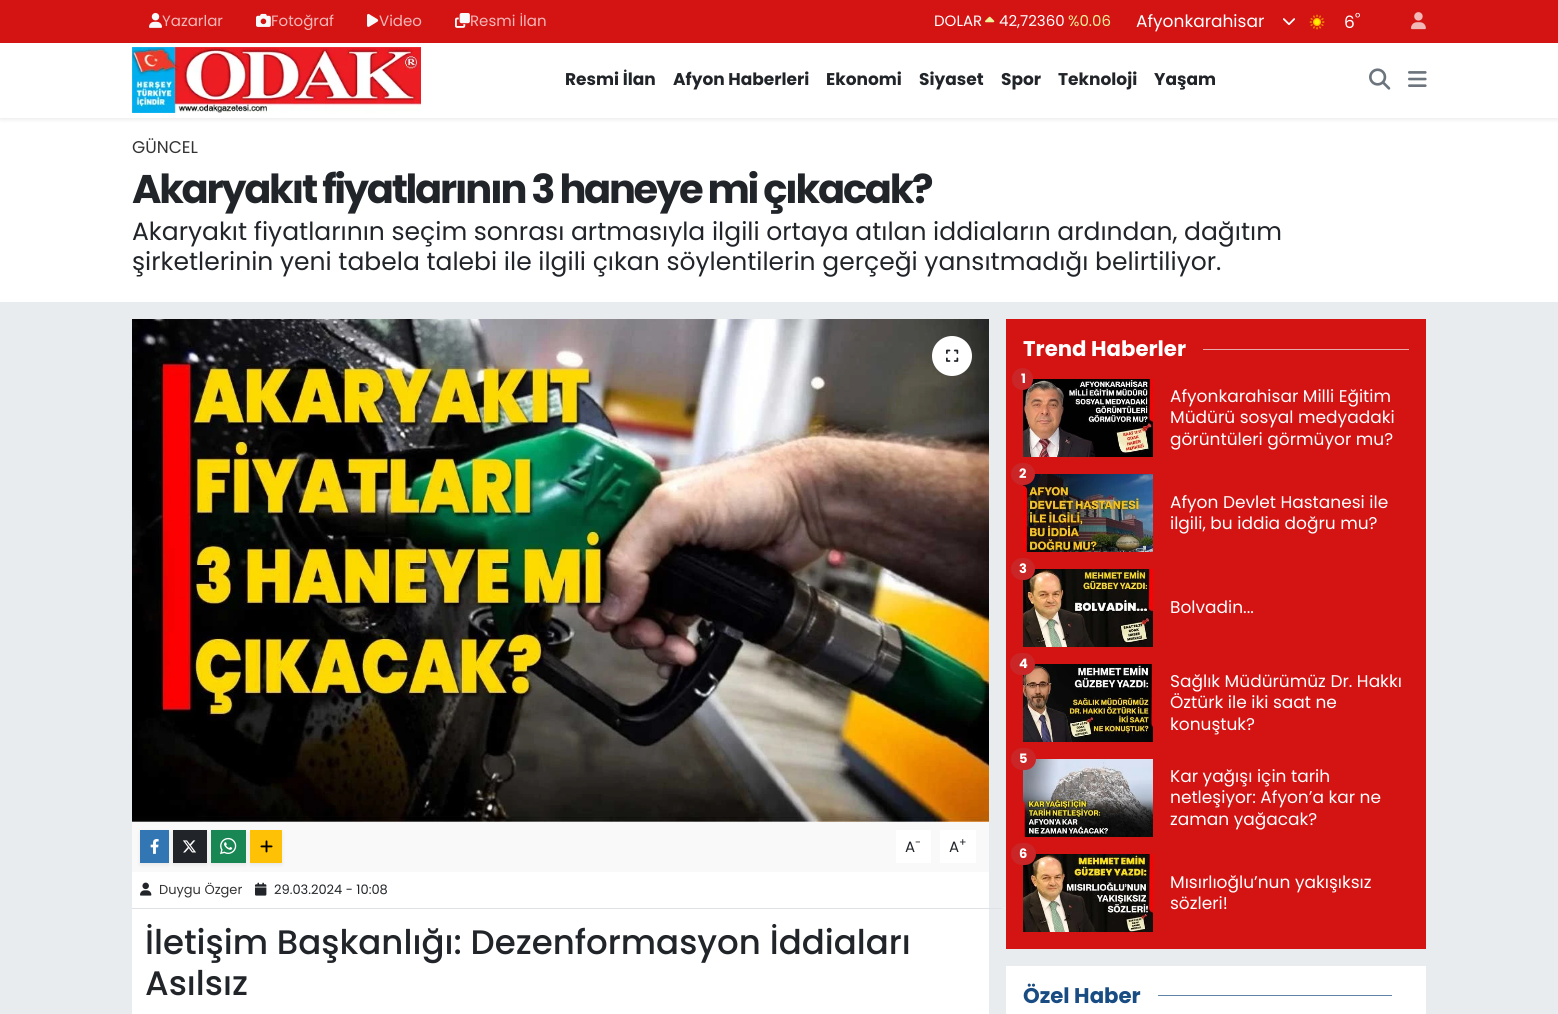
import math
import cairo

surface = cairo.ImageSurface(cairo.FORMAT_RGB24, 1558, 1014)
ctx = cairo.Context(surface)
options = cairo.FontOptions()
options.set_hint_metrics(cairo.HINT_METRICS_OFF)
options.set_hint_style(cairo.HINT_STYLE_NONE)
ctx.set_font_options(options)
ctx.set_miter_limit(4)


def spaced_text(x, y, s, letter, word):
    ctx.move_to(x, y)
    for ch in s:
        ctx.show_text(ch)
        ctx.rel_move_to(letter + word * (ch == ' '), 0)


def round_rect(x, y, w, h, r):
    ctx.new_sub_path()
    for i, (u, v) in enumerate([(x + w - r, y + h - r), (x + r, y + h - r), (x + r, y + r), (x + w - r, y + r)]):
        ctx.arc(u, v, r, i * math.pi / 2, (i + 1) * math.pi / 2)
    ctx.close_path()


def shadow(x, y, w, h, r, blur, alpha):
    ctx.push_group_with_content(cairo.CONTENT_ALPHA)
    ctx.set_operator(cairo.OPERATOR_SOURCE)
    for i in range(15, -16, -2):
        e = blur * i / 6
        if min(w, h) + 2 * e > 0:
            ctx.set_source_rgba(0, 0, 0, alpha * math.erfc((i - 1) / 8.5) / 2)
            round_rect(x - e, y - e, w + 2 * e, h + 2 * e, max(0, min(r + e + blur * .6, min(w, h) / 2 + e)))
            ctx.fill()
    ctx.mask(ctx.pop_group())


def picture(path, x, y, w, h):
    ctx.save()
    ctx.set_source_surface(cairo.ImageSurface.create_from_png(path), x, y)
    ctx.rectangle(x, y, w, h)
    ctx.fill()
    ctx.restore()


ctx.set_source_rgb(0.914, 0.925, 0.937)
ctx.paint()
ctx.set_source_rgb(0.831, 0.075, 0.075)
ctx.rectangle(0, 0, 1558, 43)
ctx.fill()
picture("img1.png", 149, 13, 13, 15)
ctx.select_font_face("Poppins")
ctx.set_font_size(15)
ctx.set_source_rgb(0.949, 0.722, 0.722)
ctx.move_to(162, 26)
ctx.show_text("Yazarlar")
picture("img2.png", 256, 13, 15, 14)
ctx.move_to(271, 26)
ctx.show_text("Fotoğraf")
picture("img3.png", 367, 13, 12, 14)
ctx.move_to(379, 26)
ctx.show_text("Video")
picture("img4.png", 455, 13, 15, 15)
ctx.move_to(470, 26)
ctx.show_text("Resmi İlan")
ctx.set_source_rgb(1, 1, 1)
ctx.move_to(934, 26)
ctx.show_text("DOLAR")
picture("img5.png", 985, 16, 10, 7)
ctx.move_to(999, 26)
ctx.show_text("42,72360")
ctx.set_source_rgb(0.933, 0.949, 0.588)
ctx.move_to(1068, 26)
ctx.show_text("%0.06")
ctx.set_font_size(17)
ctx.set_source_rgb(1, 1, 1)
ctx.move_to(1136, 27)
ctx.show_text("Afyonkarahisar")
picture("img6.png", 1283, 18, 12, 7)
picture("img7.png", 1309, 14, 16, 16)
ctx.move_to(1344, 28)
ctx.show_text("6")
ctx.set_font_size(13)
ctx.move_to(1355, 22)
ctx.show_text("°")
picture("img8.png", 1411, 12, 15, 18)
ctx.rectangle(0, 118, 1558, 184)
ctx.fill()
ctx.set_source_rgb(0, 0, 0)
shadow(0, 45, 1558, 75, 0, 2, 0.07)
ctx.set_source_rgb(1, 1, 1)
ctx.rectangle(0, 43, 1558, 75)
ctx.fill()
picture("img9.png", 132, 47, 289, 66)
ctx.select_font_face("Poppins", cairo.FONT_SLANT_NORMAL, cairo.FONT_WEIGHT_BOLD)
ctx.set_font_size(17)
ctx.set_source_rgb(0.129, 0.145, 0.161)
ctx.move_to(565, 85)
ctx.show_text("Resmi İlan")
ctx.move_to(673, 85)
ctx.show_text("Afyon Haberleri")
ctx.move_to(826, 85)
ctx.show_text("Ekonomi")
ctx.move_to(919, 85)
ctx.show_text("Siyaset")
ctx.move_to(1001, 85)
ctx.show_text("Spor")
ctx.move_to(1058, 85)
ctx.show_text("Teknoloji")
ctx.move_to(1154, 85)
ctx.show_text("Yaşam")
picture("img10.png", 1369, 68, 22, 22)
picture("img11.png", 1408, 71, 19, 16)
ctx.select_font_face("Poppins")
ctx.set_source_rgb(0.2, 0.2, 0.2)
ctx.move_to(132, 153)
ctx.show_text("GÜNCEL")
ctx.select_font_face("Poppins", cairo.FONT_SLANT_NORMAL, cairo.FONT_WEIGHT_BOLD)
ctx.set_font_size(40)
ctx.set_source_rgb(0.129, 0.145, 0.161)
spaced_text(132, 203, "Akaryakıt fiyatlarının 3 haneye mi çıkacak?", -2.3, 0)
ctx.select_font_face("Poppins")
ctx.set_font_size(25)
ctx.move_to(132, 240)
ctx.show_text("Akaryakıt fiyatlarının seçim sonrası artmasıyla ilgili ortaya atılan iddiaların ardından, dağıtım")
ctx.move_to(132, 270)
ctx.show_text("şirketlerinin yeni tabela talebi ile ilgili çıkan söylentilerin gerçeği yansıtmadığı belirtiliyor.")
ctx.set_source_rgb(1, 1, 1)
ctx.rectangle(132, 872, 857, 142)
ctx.fill()
picture("img12.png", 132, 319, 857, 503)
ctx.arc(952, 356, 20, 0, 2 * math.pi)
ctx.fill()
picture("img13.png", 946, 349, 13, 13)
ctx.set_source_rgb(0.973, 0.976, 0.98)
ctx.rectangle(132, 822, 857, 50)
ctx.fill()
ctx.set_source_rgb(0, 0, 0)
shadow(140, 832, 29, 33, 0, 2, 0.07)
ctx.set_source_rgb(0.196, 0.463, 0.702)
ctx.rectangle(140, 830, 29, 33)
ctx.fill()
picture("img14.png", 150, 839, 9, 15)
ctx.set_source_rgb(0, 0, 0)
shadow(173, 832, 34, 33, 0, 2, 0.07)
ctx.set_source_rgb(0.129, 0.145, 0.161)
ctx.rectangle(173, 830, 34, 33)
ctx.fill()
picture("img15.png", 182, 840, 14, 13)
ctx.set_source_rgb(0, 0, 0)
shadow(211, 832, 35, 33, 0, 2, 0.07)
ctx.set_source_rgb(0.098, 0.529, 0.329)
ctx.rectangle(211, 830, 35, 33)
ctx.fill()
picture("img16.png", 220, 837, 17, 18)
ctx.set_source_rgb(0, 0, 0)
shadow(250, 832, 32, 33, 0, 2, 0.07)
ctx.set_source_rgb(1, 0.757, 0.027)
ctx.rectangle(250, 830, 32, 33)
ctx.fill()
picture("img17.png", 260, 840, 13, 13)
ctx.set_source_rgb(1, 1, 1)
ctx.rectangle(896, 830, 35, 33)
ctx.fill()
ctx.set_font_size(15)
ctx.set_source_rgb(0.129, 0.145, 0.161)
ctx.move_to(905, 852)
ctx.show_text("A")
ctx.set_font_size(11)
ctx.move_to(915, 846)
ctx.show_text("-")
ctx.set_source_rgb(1, 1, 1)
ctx.rectangle(940, 830, 36, 33)
ctx.fill()
ctx.set_font_size(15)
ctx.set_source_rgb(0.129, 0.145, 0.161)
ctx.move_to(949, 852)
ctx.show_text("A")
ctx.set_font_size(11)
ctx.move_to(959, 846)
ctx.show_text("+")
ctx.set_source_rgb(0.871, 0.886, 0.902)
ctx.rectangle(132, 908, 870, 1)
ctx.fill()
picture("img18.png", 140, 882, 12, 14)
ctx.set_font_size(13)
ctx.set_source_rgb(0.2, 0.2, 0.2)
ctx.move_to(159, 894)
ctx.show_text("Duygu Özger")
picture("img19.png", 255, 882, 12, 14)
ctx.set_source_rgb(0.129, 0.145, 0.161)
ctx.move_to(274, 894)
ctx.show_text("29.03.2024 - 10:08")
ctx.select_font_face("Poppins Medium")
ctx.set_font_size(34)
ctx.move_to(145, 954)
ctx.show_text("İletişim Başkanlığı: Dezenformasyon İddiaları")
ctx.move_to(145, 995)
ctx.show_text("Asılsız")
ctx.set_source_rgb(0.831, 0.075, 0.075)
ctx.rectangle(1006, 319, 420, 630)
ctx.fill()
ctx.select_font_face("Poppins", cairo.FONT_SLANT_NORMAL, cairo.FONT_WEIGHT_BOLD)
ctx.set_font_size(21.25)
ctx.set_source_rgb(1, 1, 1)
ctx.move_to(1023, 356)
ctx.show_text("Trend Haberler")
ctx.set_source_rgb(0.906, 0.678, 0.678)
ctx.rectangle(1203, 349, 206, 1)
ctx.fill()
picture("img20.png", 1023, 379, 130, 78)
ctx.set_source_rgb(0.792, 0.145, 0.153)
round_rect(1012, 368, 21, 22, 10.5)
ctx.fill()
ctx.set_font_size(13)
ctx.set_source_rgb(1, 1, 1)
ctx.move_to(1021, 383)
ctx.show_text("1")
ctx.select_font_face("Poppins")
ctx.set_font_size(17)
ctx.move_to(1170, 402)
ctx.show_text("Afyonkarahisar Milli Eğitim")
ctx.move_to(1170, 423)
ctx.show_text("Müdürü sosyal medyadaki")
ctx.move_to(1170, 445)
ctx.show_text("görüntüleri görmüyor mu?")
picture("img21.png", 1023, 474, 130, 78)
ctx.set_source_rgb(0.792, 0.145, 0.153)
round_rect(1011, 463, 24, 22, 11)
ctx.fill()
ctx.select_font_face("Poppins", cairo.FONT_SLANT_NORMAL, cairo.FONT_WEIGHT_BOLD)
ctx.set_font_size(13)
ctx.set_source_rgb(1, 1, 1)
ctx.move_to(1019, 478)
ctx.show_text("2")
ctx.select_font_face("Poppins")
ctx.set_font_size(17)
ctx.move_to(1170, 508)
ctx.show_text("Afyon Devlet Hastanesi ile")
ctx.move_to(1170, 529)
ctx.show_text("ilgili, bu iddia doğru mu?")
picture("img22.png", 1023, 569, 130, 78)
ctx.set_source_rgb(0.792, 0.145, 0.153)
round_rect(1011, 558, 24, 22, 11)
ctx.fill()
ctx.select_font_face("Poppins", cairo.FONT_SLANT_NORMAL, cairo.FONT_WEIGHT_BOLD)
ctx.set_font_size(13)
ctx.set_source_rgb(1, 1, 1)
ctx.move_to(1019, 573)
ctx.show_text("3")
ctx.select_font_face("Poppins")
ctx.set_font_size(17)
ctx.move_to(1170, 613)
ctx.show_text("Bolvadin...")
picture("img23.png", 1023, 664, 130, 78)
ctx.set_source_rgb(0.792, 0.145, 0.153)
round_rect(1010, 653, 25, 22, 11)
ctx.fill()
ctx.select_font_face("Poppins", cairo.FONT_SLANT_NORMAL, cairo.FONT_WEIGHT_BOLD)
ctx.set_font_size(13)
ctx.set_source_rgb(1, 1, 1)
ctx.move_to(1019, 668)
ctx.show_text("4")
ctx.select_font_face("Poppins")
ctx.set_font_size(17)
ctx.move_to(1170, 687)
ctx.show_text("Sağlık Müdürümüz Dr. Hakkı")
ctx.move_to(1170, 708)
ctx.show_text("Öztürk ile iki saat ne")
ctx.move_to(1170, 730)
ctx.show_text("konuştuk?")
picture("img24.png", 1023, 759, 130, 78)
ctx.set_source_rgb(0.792, 0.145, 0.153)
round_rect(1011, 748, 25, 22, 11)
ctx.fill()
ctx.select_font_face("Poppins", cairo.FONT_SLANT_NORMAL, cairo.FONT_WEIGHT_BOLD)
ctx.set_font_size(13)
ctx.set_source_rgb(1, 1, 1)
ctx.move_to(1019, 763)
ctx.show_text("5")
ctx.select_font_face("Poppins")
ctx.set_font_size(17)
ctx.move_to(1170, 782)
ctx.show_text("Kar yağışı için tarih")
ctx.move_to(1170, 803)
ctx.show_text("netleşiyor: Afyon’a kar ne")
ctx.move_to(1170, 825)
ctx.show_text("zaman yağacak?")
picture("img25.png", 1023, 854, 130, 78)
ctx.set_source_rgb(0.792, 0.145, 0.153)
round_rect(1011, 843, 25, 22, 11)
ctx.fill()
ctx.select_font_face("Poppins", cairo.FONT_SLANT_NORMAL, cairo.FONT_WEIGHT_BOLD)
ctx.set_font_size(13)
ctx.set_source_rgb(1, 1, 1)
ctx.move_to(1019, 858)
ctx.show_text("6")
ctx.select_font_face("Poppins")
ctx.set_font_size(17)
ctx.move_to(1170, 888)
ctx.show_text("Mısırlıoğlu’nun yakışıksız")
ctx.move_to(1170, 909)
ctx.show_text("sözleri!")
ctx.rectangle(1006, 966, 420, 48)
ctx.fill()
ctx.select_font_face("Poppins", cairo.FONT_SLANT_NORMAL, cairo.FONT_WEIGHT_BOLD)
ctx.set_font_size(21.25)
ctx.set_source_rgb(0.098, 0.298, 0.51)
ctx.move_to(1023, 1003)
ctx.show_text("Özel Haber")
ctx.set_source_rgb(0.369, 0.51, 0.659)
ctx.rectangle(1158, 995, 234, 1)
ctx.fill()
surface.write_to_png("page.png")
